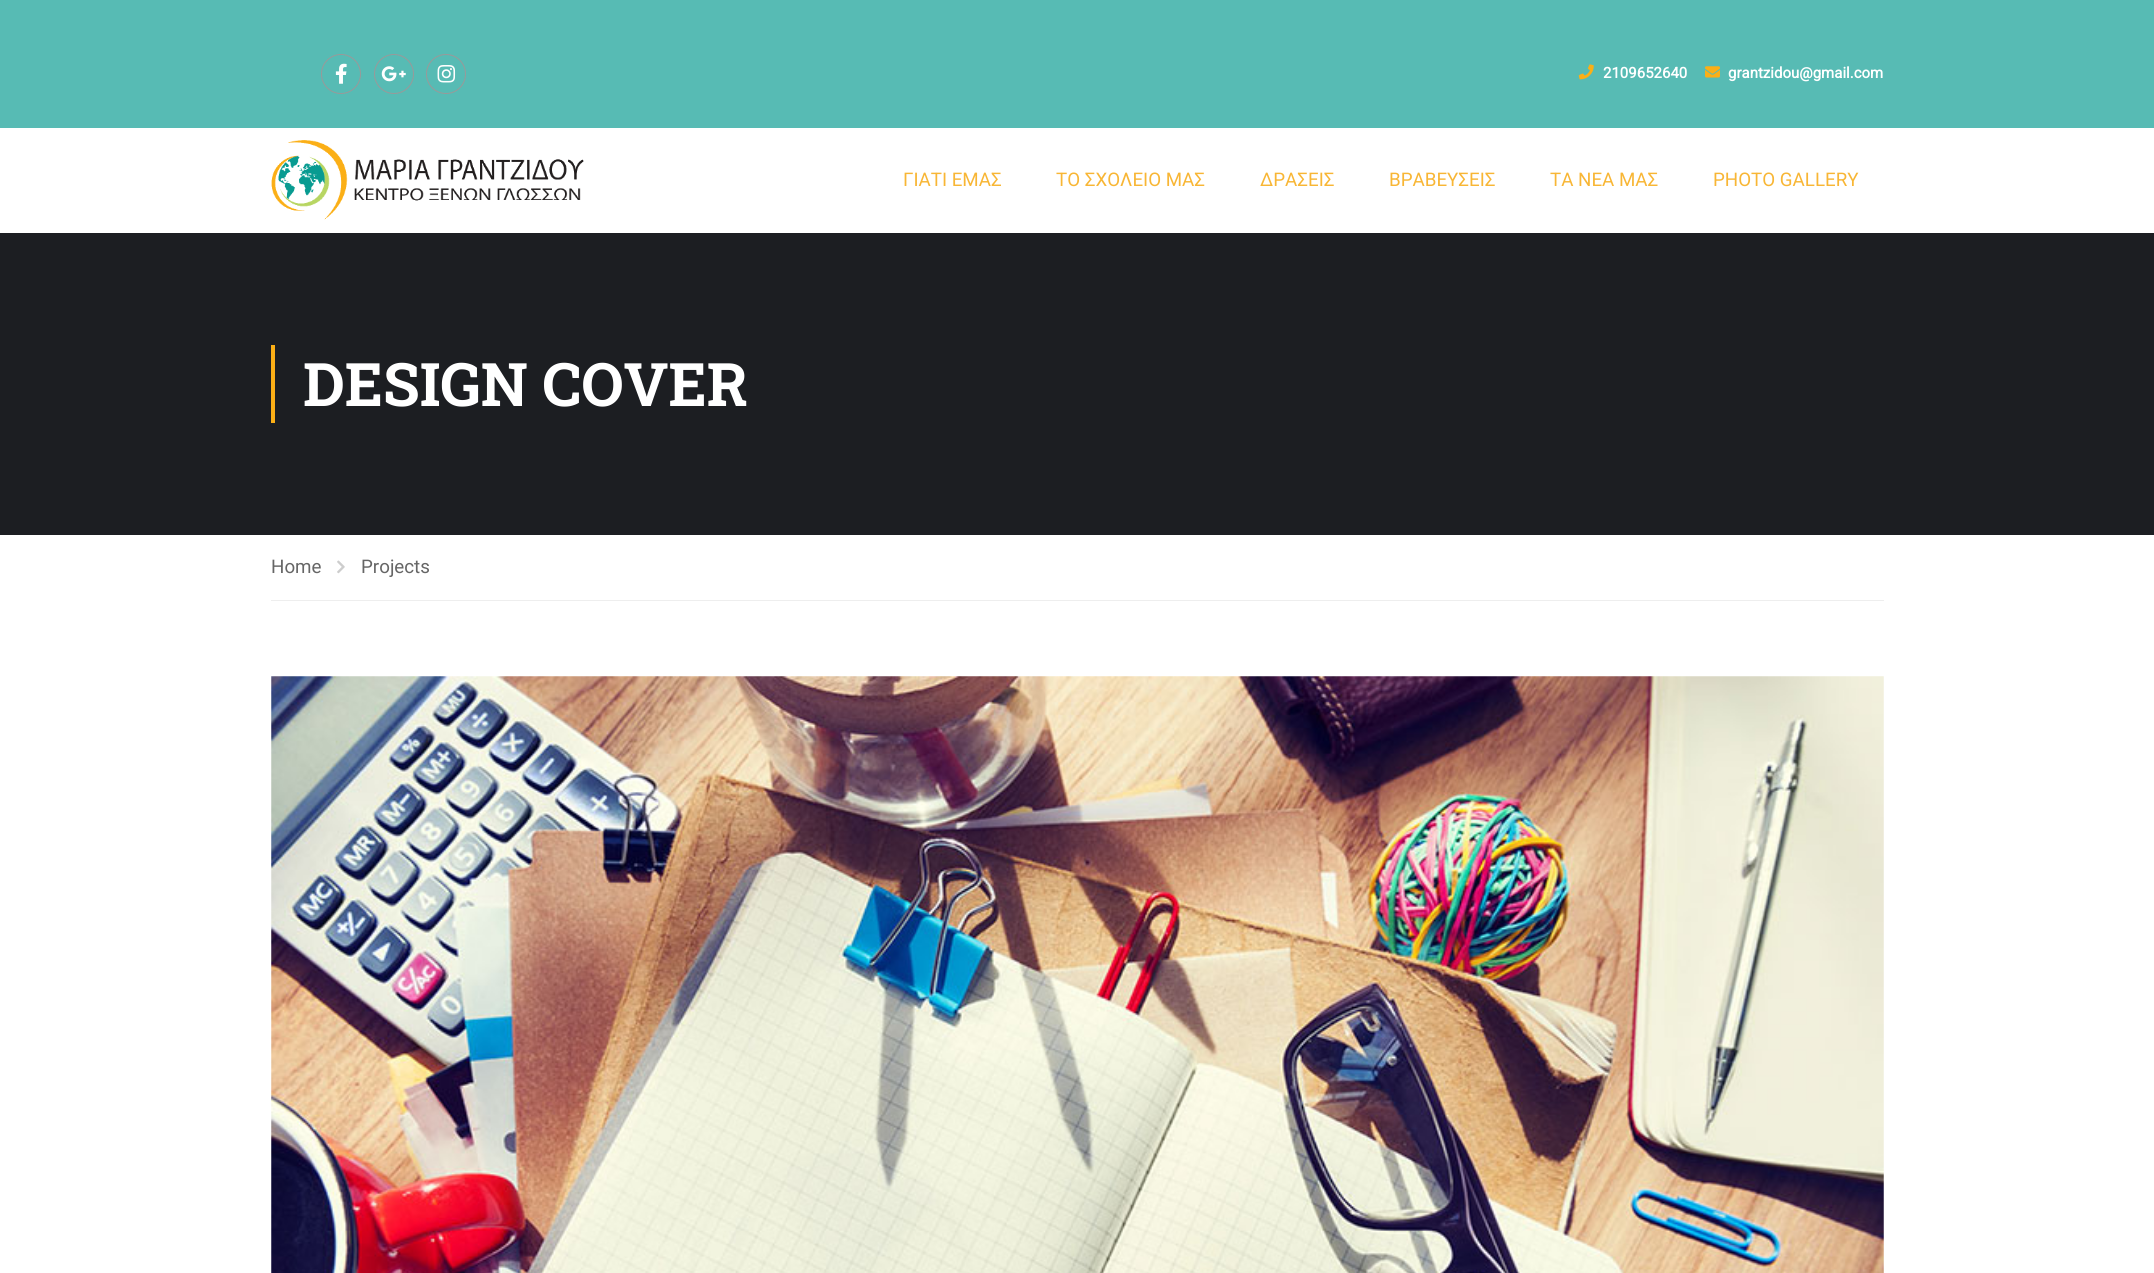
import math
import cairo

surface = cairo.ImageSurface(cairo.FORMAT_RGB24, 2154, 1273)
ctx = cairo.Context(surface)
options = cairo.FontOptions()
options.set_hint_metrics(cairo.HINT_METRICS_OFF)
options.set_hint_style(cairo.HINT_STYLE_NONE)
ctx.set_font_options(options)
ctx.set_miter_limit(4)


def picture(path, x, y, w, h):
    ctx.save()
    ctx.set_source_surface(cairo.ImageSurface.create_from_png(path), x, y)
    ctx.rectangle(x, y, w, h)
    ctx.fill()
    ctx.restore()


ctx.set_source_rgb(1, 1, 1)
ctx.paint()
ctx.set_source_rgb(0.341, 0.733, 0.706)
ctx.rectangle(0, 0, 2154, 128)
ctx.fill()
ctx.arc(341, 74, 19.5, 0, 2 * math.pi)
ctx.set_source_rgb(0.6, 0.6, 0.6)
ctx.set_line_width(1)
ctx.stroke()
picture("img1.png", 335, 63, 12, 21)
ctx.arc(394, 74, 19.5, 0, 2 * math.pi)
ctx.stroke()
picture("img2.png", 381, 66, 25, 16)
ctx.arc(446, 74, 19.5, 0, 2 * math.pi)
ctx.stroke()
picture("img3.png", 437, 65, 19, 18)
picture("img4.png", 1578, 64, 16, 16)
ctx.select_font_face("Roboto", cairo.FONT_SLANT_NORMAL, cairo.FONT_WEIGHT_BOLD)
ctx.set_font_size(15)
ctx.set_source_rgb(1, 1, 1)
ctx.move_to(1603, 78)
ctx.show_text("2109652640")
picture("img5.png", 1705, 66, 15, 12)
ctx.move_to(1728, 78)
ctx.show_text("grantzidou@gmail.com")
picture("img6.png", 271, 140, 313, 80)
ctx.select_font_face("Roboto")
ctx.set_font_size(18.75)
ctx.set_source_rgb(0.969, 0.714, 0.208)
ctx.move_to(903, 186)
ctx.show_text("ΓΙΑΤΙ ΕΜΑΣ")
ctx.move_to(1056, 186)
ctx.show_text("ΤΟ ΣΧΟΛΕΙΟ ΜΑΣ")
ctx.move_to(1260, 186)
ctx.show_text("ΔΡΑΣΕΙΣ")
ctx.move_to(1389, 186)
ctx.show_text("ΒΡΑΒΕΥΣΕΙΣ")
ctx.move_to(1550, 186)
ctx.show_text("ΤΑ ΝΕΑ ΜΑΣ")
ctx.move_to(1713, 186)
ctx.show_text("PHOTO GALLERY")
ctx.set_source_rgb(0.11, 0.118, 0.133)
ctx.rectangle(0, 233, 2154, 302)
ctx.fill()
ctx.set_source_rgb(0.984, 0.686, 0.086)
ctx.rectangle(271, 345, 4, 78)
ctx.fill()
ctx.select_font_face("Roboto Slab", cairo.FONT_SLANT_NORMAL, cairo.FONT_WEIGHT_BOLD)
ctx.set_font_size(60)
ctx.set_source_rgb(1, 1, 1)
ctx.move_to(303, 406)
ctx.show_text("DESIGN COVER")
ctx.set_source_rgb(0.933, 0.933, 0.933)
ctx.rectangle(271, 600, 1613, 1)
ctx.fill()
ctx.select_font_face("Roboto")
ctx.set_font_size(18.75)
ctx.set_source_rgb(0.4, 0.4, 0.4)
ctx.move_to(271, 573)
ctx.show_text("Home")
picture("img7.png", 337, 560, 8, 14)
ctx.move_to(361, 573)
ctx.show_text("Projects")
picture("img8.png", 271, 676, 1613, 597)
surface.write_to_png("page.png")
